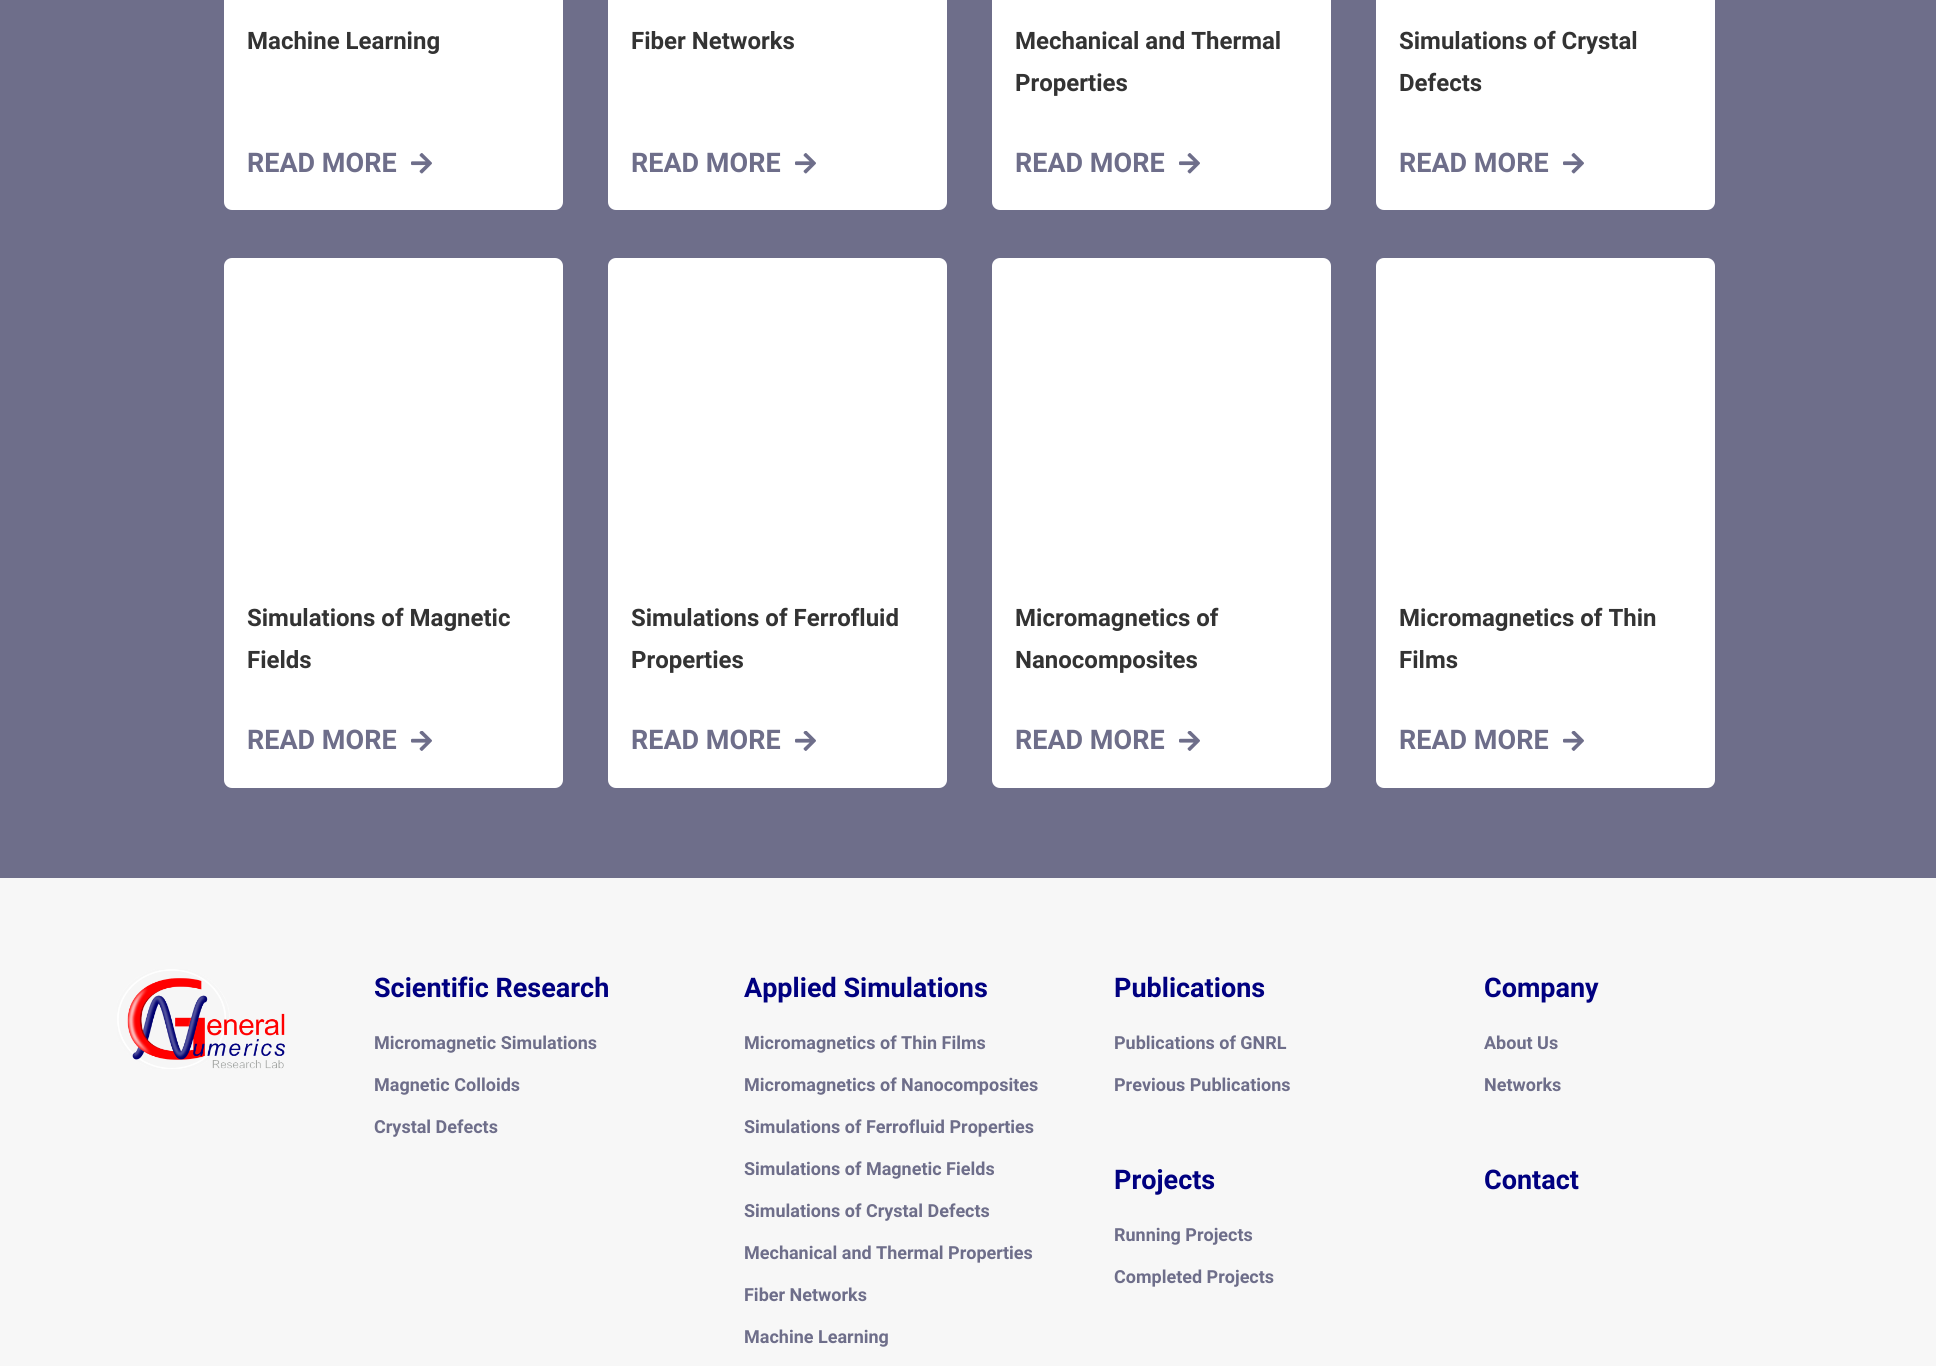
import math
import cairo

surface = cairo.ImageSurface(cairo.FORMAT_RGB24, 1936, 1366)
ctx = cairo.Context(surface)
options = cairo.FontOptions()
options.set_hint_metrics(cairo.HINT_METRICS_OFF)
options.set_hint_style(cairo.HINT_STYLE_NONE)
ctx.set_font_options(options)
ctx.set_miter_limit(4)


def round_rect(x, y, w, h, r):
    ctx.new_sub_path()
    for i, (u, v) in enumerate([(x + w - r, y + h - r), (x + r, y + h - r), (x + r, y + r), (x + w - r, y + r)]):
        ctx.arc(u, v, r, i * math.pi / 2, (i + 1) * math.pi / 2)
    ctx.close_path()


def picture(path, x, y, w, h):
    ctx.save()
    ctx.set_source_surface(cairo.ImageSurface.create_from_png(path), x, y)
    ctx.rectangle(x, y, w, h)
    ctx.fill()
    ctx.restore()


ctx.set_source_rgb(0.431, 0.431, 0.541)
ctx.paint()
ctx.set_source_rgb(1, 1, 1)
round_rect(224, -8, 339, 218, 8)
ctx.fill()
ctx.select_font_face("Roboto", cairo.FONT_SLANT_NORMAL, cairo.FONT_WEIGHT_BOLD)
ctx.set_font_size(24)
ctx.set_source_rgb(0.2, 0.2, 0.2)
ctx.move_to(247, 49)
ctx.show_text("Machine Learning")
ctx.set_font_size(27)
ctx.set_source_rgb(0.431, 0.431, 0.541)
ctx.move_to(247, 172)
ctx.show_text("READ MORE")
picture("img1.png", 411, 153, 21, 21)
ctx.set_source_rgb(1, 1, 1)
round_rect(608, -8, 339, 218, 8)
ctx.fill()
ctx.set_font_size(24)
ctx.set_source_rgb(0.2, 0.2, 0.2)
ctx.move_to(631, 49)
ctx.show_text("Fiber Networks")
ctx.set_font_size(27)
ctx.set_source_rgb(0.431, 0.431, 0.541)
ctx.move_to(631, 172)
ctx.show_text("READ MORE")
picture("img1.png", 795, 153, 21, 21)
ctx.set_source_rgb(1, 1, 1)
round_rect(992, -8, 339, 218, 8)
ctx.fill()
ctx.set_font_size(24)
ctx.set_source_rgb(0.2, 0.2, 0.2)
ctx.move_to(1015, 49)
ctx.show_text("Mechanical and Thermal")
ctx.move_to(1015, 91)
ctx.show_text("Properties")
ctx.set_font_size(27)
ctx.set_source_rgb(0.431, 0.431, 0.541)
ctx.move_to(1015, 172)
ctx.show_text("READ MORE")
picture("img1.png", 1179, 153, 21, 21)
ctx.set_source_rgb(1, 1, 1)
round_rect(1376, -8, 339, 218, 8)
ctx.fill()
ctx.set_font_size(24)
ctx.set_source_rgb(0.2, 0.2, 0.2)
ctx.move_to(1399, 49)
ctx.show_text("Simulations of Crystal")
ctx.move_to(1399, 91)
ctx.show_text("Defects")
ctx.set_font_size(27)
ctx.set_source_rgb(0.431, 0.431, 0.541)
ctx.move_to(1399, 172)
ctx.show_text("READ MORE")
picture("img1.png", 1563, 153, 21, 21)
ctx.set_source_rgb(1, 1, 1)
round_rect(224, 258, 339, 530, 8)
ctx.fill()
ctx.set_font_size(24)
ctx.set_source_rgb(0.2, 0.2, 0.2)
ctx.move_to(247, 626)
ctx.show_text("Simulations of Magnetic")
ctx.move_to(247, 668)
ctx.show_text("Fields")
ctx.set_font_size(27)
ctx.set_source_rgb(0.431, 0.431, 0.541)
ctx.move_to(247, 749)
ctx.show_text("READ MORE")
picture("img2.png", 411, 731, 21, 20)
ctx.set_source_rgb(1, 1, 1)
round_rect(608, 258, 339, 530, 8)
ctx.fill()
ctx.set_font_size(24)
ctx.set_source_rgb(0.2, 0.2, 0.2)
ctx.move_to(631, 626)
ctx.show_text("Simulations of Ferrofluid")
ctx.move_to(631, 668)
ctx.show_text("Properties")
ctx.set_font_size(27)
ctx.set_source_rgb(0.431, 0.431, 0.541)
ctx.move_to(631, 749)
ctx.show_text("READ MORE")
picture("img2.png", 795, 731, 21, 20)
ctx.set_source_rgb(1, 1, 1)
round_rect(992, 258, 339, 530, 8)
ctx.fill()
ctx.set_font_size(24)
ctx.set_source_rgb(0.2, 0.2, 0.2)
ctx.move_to(1015, 626)
ctx.show_text("Micromagnetics of")
ctx.move_to(1015, 668)
ctx.show_text("Nanocomposites")
ctx.set_font_size(27)
ctx.set_source_rgb(0.431, 0.431, 0.541)
ctx.move_to(1015, 749)
ctx.show_text("READ MORE")
picture("img2.png", 1179, 731, 21, 20)
ctx.set_source_rgb(1, 1, 1)
round_rect(1376, 258, 339, 530, 8)
ctx.fill()
ctx.set_font_size(24)
ctx.set_source_rgb(0.2, 0.2, 0.2)
ctx.move_to(1399, 626)
ctx.show_text("Micromagnetics of Thin")
ctx.move_to(1399, 668)
ctx.show_text("Films")
ctx.set_font_size(27)
ctx.set_source_rgb(0.431, 0.431, 0.541)
ctx.move_to(1399, 749)
ctx.show_text("READ MORE")
picture("img2.png", 1563, 731, 21, 20)
ctx.set_source_rgb(0.965, 0.965, 0.965)
ctx.rectangle(0, 878, 1936, 488)
ctx.fill()
picture("img3.png", 117, 969, 168, 100)
ctx.set_source_rgb(0, 0, 0.502)
ctx.move_to(374, 997)
ctx.show_text("Scientific Research")
ctx.set_font_size(18)
ctx.set_source_rgb(0.431, 0.431, 0.541)
ctx.move_to(374, 1049)
ctx.show_text("Micromagnetic Simulations")
ctx.move_to(374, 1091)
ctx.show_text("Magnetic Colloids")
ctx.move_to(374, 1133)
ctx.show_text("Crystal Defects")
ctx.set_font_size(27)
ctx.set_source_rgb(0, 0, 0.502)
ctx.move_to(744, 997)
ctx.show_text("Applied Simulations")
ctx.set_font_size(18)
ctx.set_source_rgb(0.431, 0.431, 0.541)
ctx.move_to(744, 1049)
ctx.show_text("Micromagnetics of Thin Films")
ctx.move_to(744, 1091)
ctx.show_text("Micromagnetics of Nanocomposites")
ctx.move_to(744, 1133)
ctx.show_text("Simulations of Ferrofluid Properties")
ctx.move_to(744, 1175)
ctx.show_text("Simulations of Magnetic Fields")
ctx.move_to(744, 1217)
ctx.show_text("Simulations of Crystal Defects")
ctx.move_to(744, 1259)
ctx.show_text("Mechanical and Thermal Properties")
ctx.move_to(744, 1301)
ctx.show_text("Fiber Networks")
ctx.move_to(744, 1343)
ctx.show_text("Machine Learning")
ctx.set_font_size(27)
ctx.set_source_rgb(0, 0, 0.502)
ctx.move_to(1114, 997)
ctx.show_text("Publications")
ctx.set_font_size(18)
ctx.set_source_rgb(0.431, 0.431, 0.541)
ctx.move_to(1114, 1049)
ctx.show_text("Publications of GNRL")
ctx.move_to(1114, 1091)
ctx.show_text("Previous Publications")
ctx.set_font_size(27)
ctx.set_source_rgb(0, 0, 0.502)
ctx.move_to(1484, 997)
ctx.show_text("Company")
ctx.set_font_size(18)
ctx.set_source_rgb(0.431, 0.431, 0.541)
ctx.move_to(1484, 1049)
ctx.show_text("About Us")
ctx.move_to(1484, 1091)
ctx.show_text("Networks")
ctx.set_font_size(27)
ctx.set_source_rgb(0, 0, 0.502)
ctx.move_to(1114, 1189)
ctx.show_text("Projects")
ctx.set_font_size(18)
ctx.set_source_rgb(0.431, 0.431, 0.541)
ctx.move_to(1114, 1241)
ctx.show_text("Running Projects")
ctx.move_to(1114, 1283)
ctx.show_text("Completed Projects")
ctx.set_font_size(27)
ctx.set_source_rgb(0, 0, 0.502)
ctx.move_to(1484, 1189)
ctx.show_text("Contact")
surface.write_to_png("page.png")
